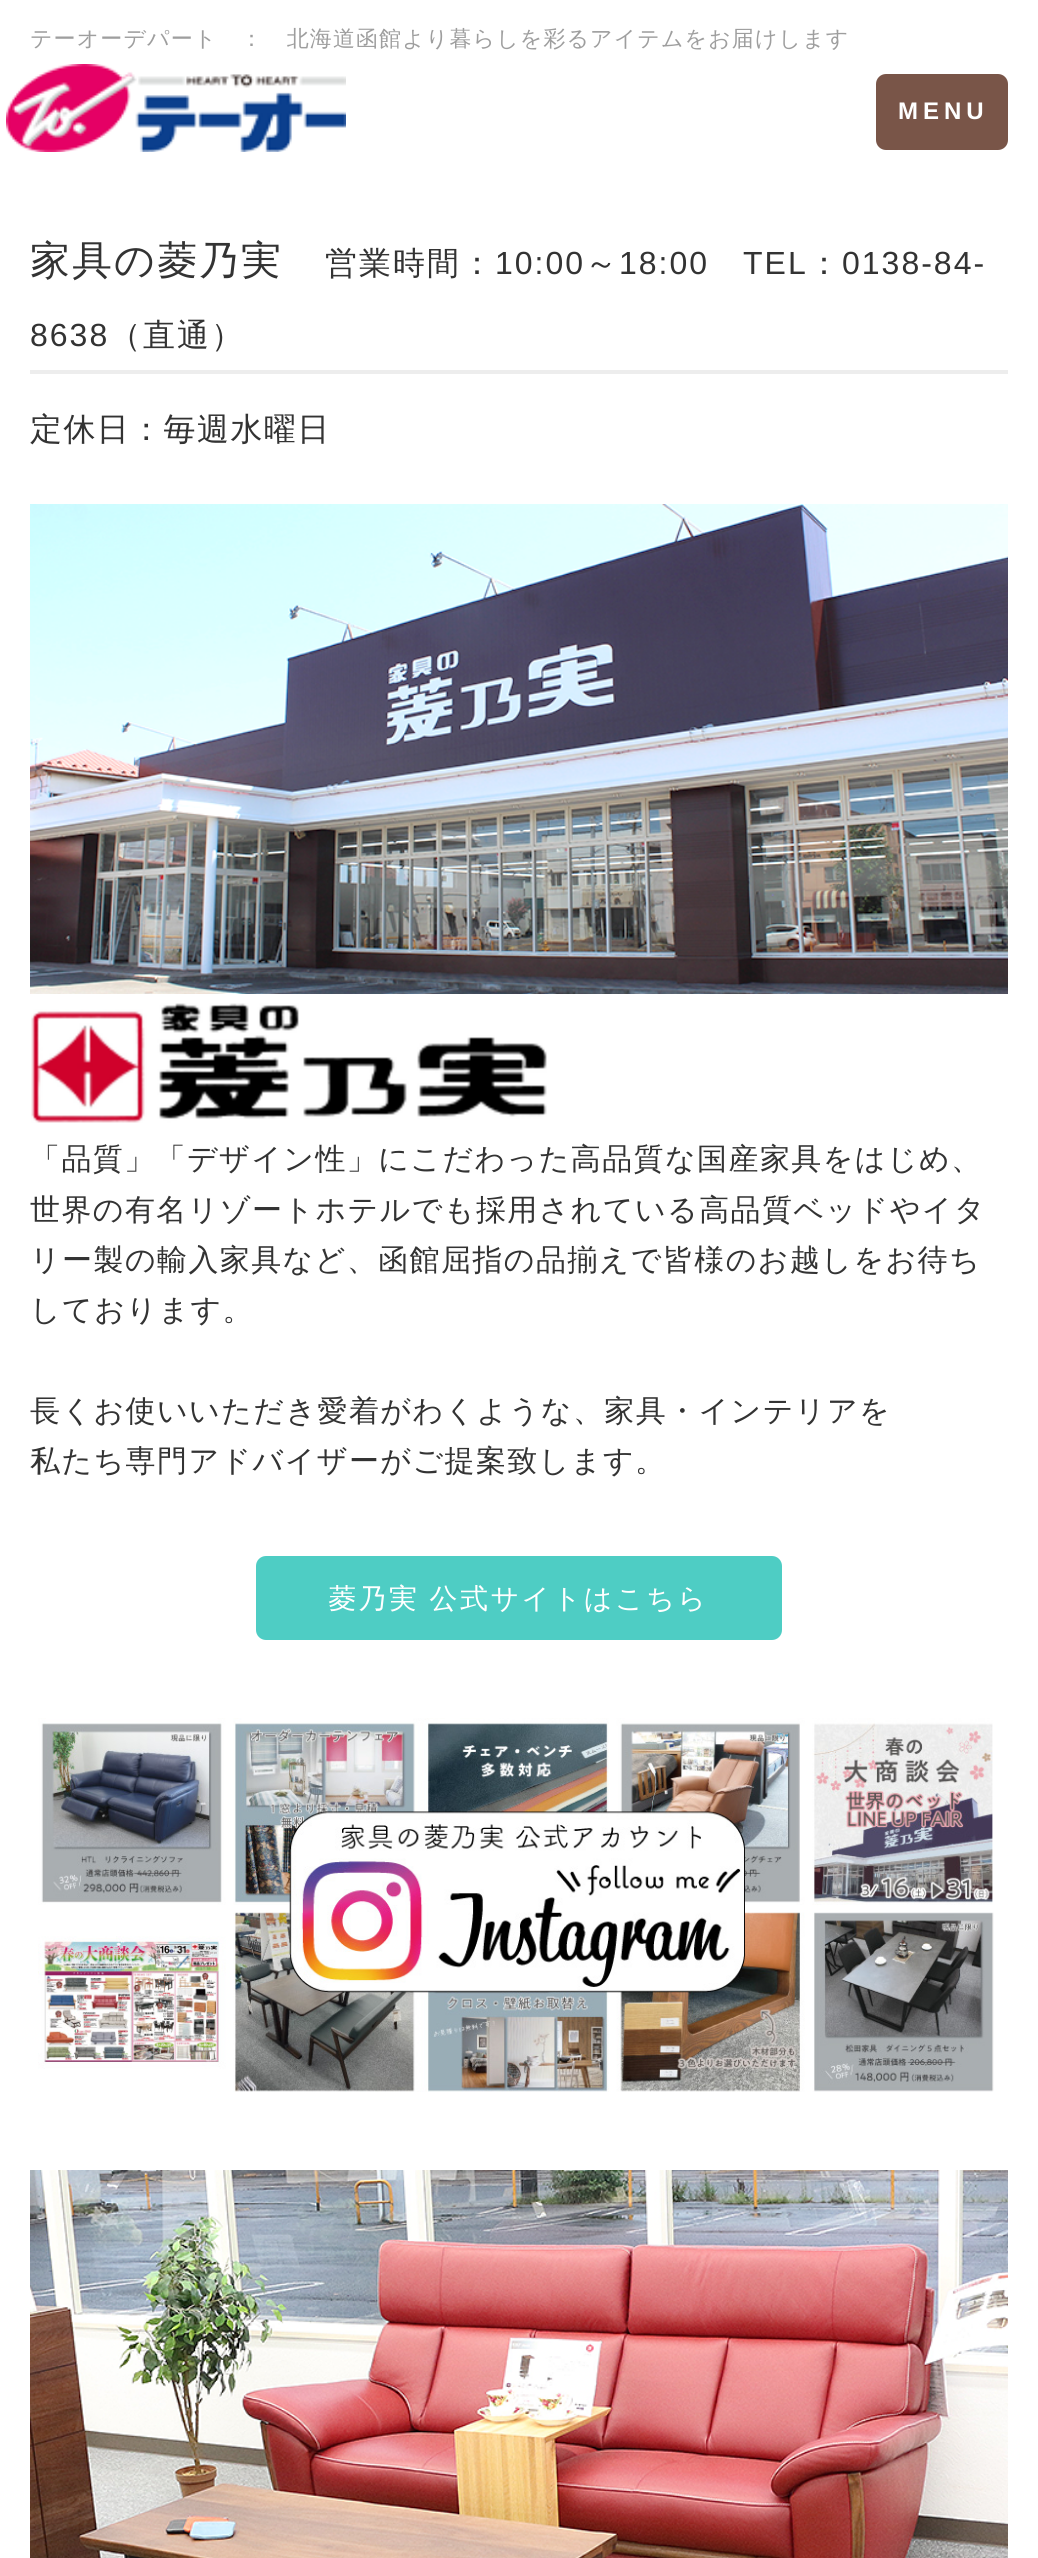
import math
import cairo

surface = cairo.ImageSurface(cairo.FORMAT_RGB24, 1038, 2558)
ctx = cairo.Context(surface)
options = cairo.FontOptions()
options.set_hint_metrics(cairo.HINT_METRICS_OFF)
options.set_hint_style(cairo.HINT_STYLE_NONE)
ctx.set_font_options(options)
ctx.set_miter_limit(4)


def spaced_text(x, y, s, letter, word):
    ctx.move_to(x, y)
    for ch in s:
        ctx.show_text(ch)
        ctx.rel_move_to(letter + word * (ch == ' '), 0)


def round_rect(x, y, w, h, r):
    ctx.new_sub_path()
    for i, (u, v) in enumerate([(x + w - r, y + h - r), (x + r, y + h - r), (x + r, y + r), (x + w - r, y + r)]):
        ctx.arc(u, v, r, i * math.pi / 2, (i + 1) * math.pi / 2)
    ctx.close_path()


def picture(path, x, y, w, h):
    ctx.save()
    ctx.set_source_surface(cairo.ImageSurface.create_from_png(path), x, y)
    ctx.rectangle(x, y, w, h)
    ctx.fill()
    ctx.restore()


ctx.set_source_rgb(1, 1, 1)
ctx.paint()
ctx.select_font_face("WenQuanYi Zen Hei Medium")
ctx.set_font_size(22)
ctx.set_source_rgb(0.62, 0.62, 0.62)
spaced_text(30, 46, "テーオーデパート　：　北海道函館より暮らしを彩るアイテムをお届けします", 1.1, 0)
picture("img1.png", 6, 64, 340, 88)
ctx.set_source_rgb(0.475, 0.333, 0.282)
round_rect(877, 75, 130, 74, 9)
ctx.fill_preserve()
ctx.stroke()
ctx.select_font_face("Liberation Sans", cairo.FONT_SLANT_NORMAL, cairo.FONT_WEIGHT_BOLD)
ctx.set_font_size(24)
ctx.set_source_rgb(1, 1, 1)
spaced_text(898, 119, "MENU", 5, 0)
ctx.set_source_rgb(0.929, 0.929, 0.929)
ctx.rectangle(30, 370, 978, 4)
ctx.fill()
ctx.select_font_face("WenQuanYi Zen Hei Medium")
ctx.set_font_size(40)
ctx.set_source_rgb(0.2, 0.2, 0.2)
spaced_text(30, 274, "家具の菱乃実", 2, 0)
ctx.set_font_size(32)
spaced_text(325, 274, "営業時間：", 2, 0)
ctx.select_font_face("Liberation Sans")
spaced_text(495, 274, "10:00", 2, 0)
ctx.select_font_face("WenQuanYi Zen Hei Medium")
spaced_text(585, 274, "～", 2, 0)
ctx.select_font_face("Liberation Sans")
spaced_text(619, 274, "18:00", 2, 0)
spaced_text(743, 274, "TEL", 2, 0)
ctx.select_font_face("WenQuanYi Zen Hei Medium")
spaced_text(808, 274, "：", 2, 0)
ctx.select_font_face("Liberation Sans")
spaced_text(842, 274, "0138-84-", 2, 0)
spaced_text(30, 346, "8638", 2, 0)
ctx.select_font_face("WenQuanYi Zen Hei Medium")
spaced_text(109, 346, "（直通）", 2, 0)
spaced_text(30, 440, "定休日：毎週水曜日", 1.4, 0)
picture("img2.png", 30, 504, 978, 490)
picture("img3.png", 31, 1003, 516, 120)
ctx.set_font_size(30)
spaced_text(30, 1169, "「品質」「デザイン性」にこだわった高品質な国産家具をはじめ、", 1.4, 0)
spaced_text(30, 1220, "世界の有名リゾートホテルでも採用されている高品質ベッドやイタ", 1.4, 0)
spaced_text(30, 1270, "リー製の輸入家具など、函館屈指の品揃えで皆様のお越しをお待ち", 1.4, 0)
spaced_text(30, 1320, "しております。", 1.4, 0)
spaced_text(30, 1421, "長くお使いいただき愛着がわくような、家具・インテリアを", 1.4, 0)
spaced_text(30, 1471, "私たち専門アドバイザーがご提案致します。", 1.4, 0)
ctx.set_source_rgb(0.306, 0.804, 0.769)
round_rect(257, 1557, 524, 82, 9)
ctx.fill_preserve()
ctx.stroke()
ctx.set_font_size(28)
ctx.set_source_rgb(1, 1, 1)
spaced_text(328, 1608, "菱乃実 公式サイトはこちら", 2.5, -1)
picture("img4.png", 38, 1718, 956, 374)
picture("img5.png", 30, 2170, 978, 388)
surface.write_to_png("page.png")
